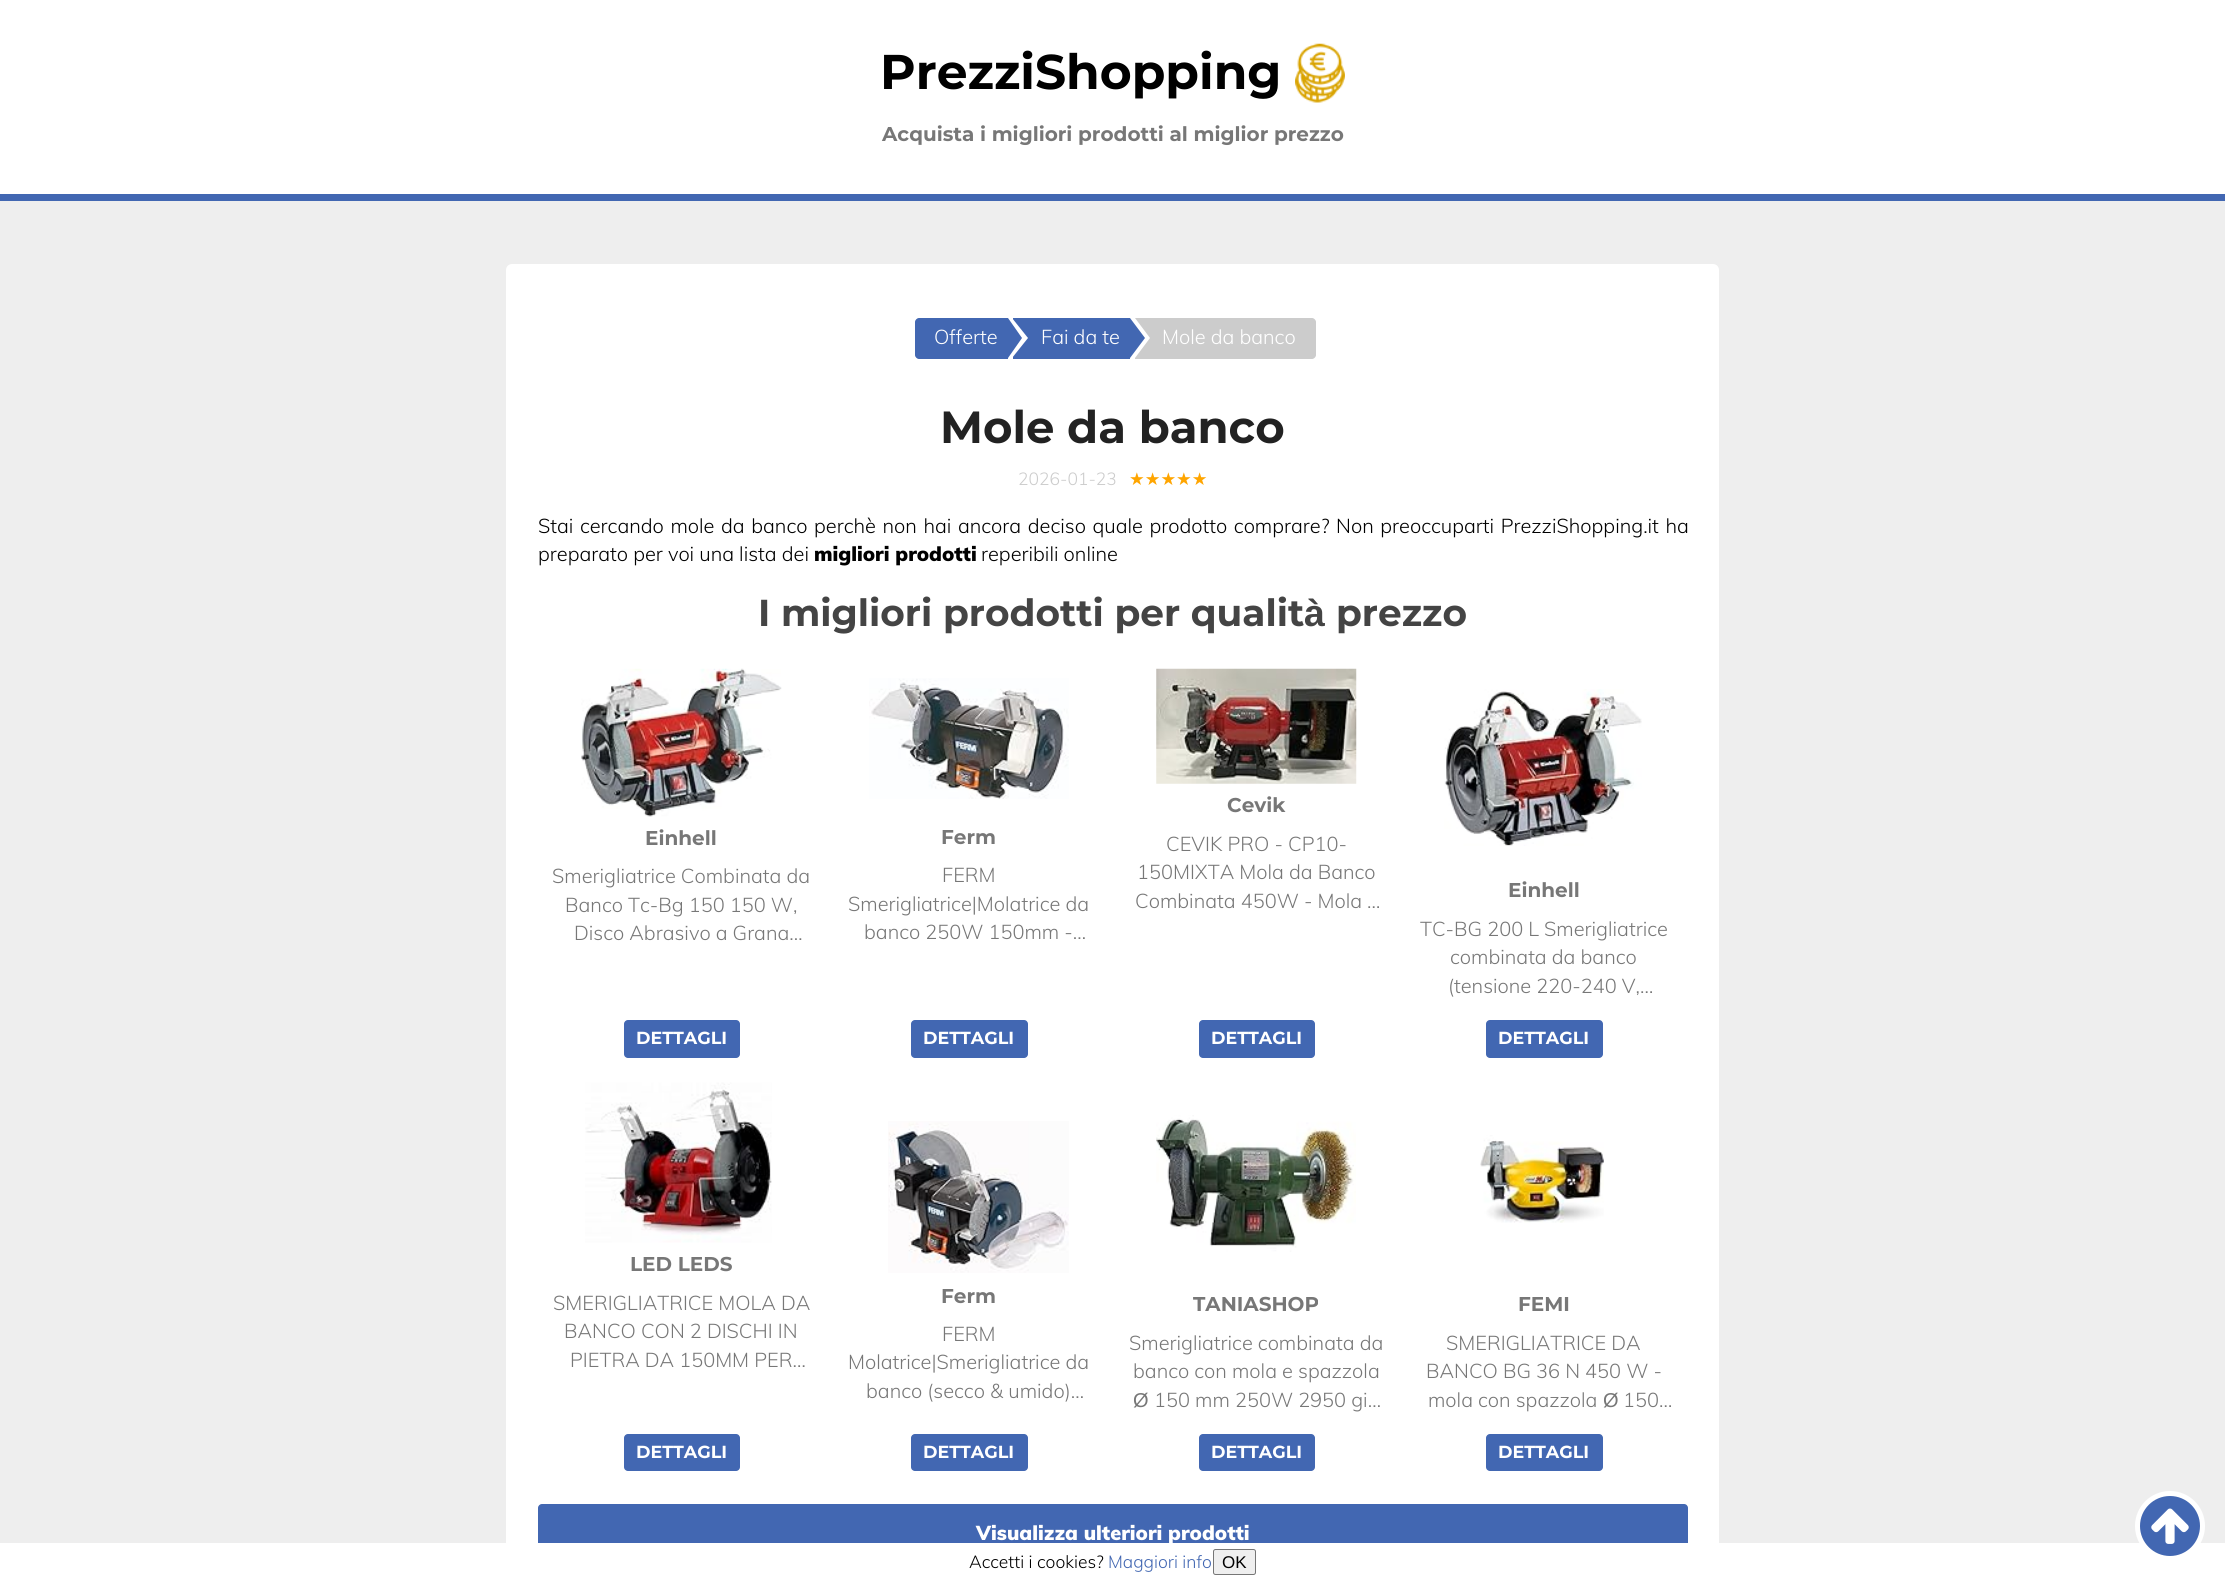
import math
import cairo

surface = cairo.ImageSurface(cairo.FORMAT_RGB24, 2225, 1581)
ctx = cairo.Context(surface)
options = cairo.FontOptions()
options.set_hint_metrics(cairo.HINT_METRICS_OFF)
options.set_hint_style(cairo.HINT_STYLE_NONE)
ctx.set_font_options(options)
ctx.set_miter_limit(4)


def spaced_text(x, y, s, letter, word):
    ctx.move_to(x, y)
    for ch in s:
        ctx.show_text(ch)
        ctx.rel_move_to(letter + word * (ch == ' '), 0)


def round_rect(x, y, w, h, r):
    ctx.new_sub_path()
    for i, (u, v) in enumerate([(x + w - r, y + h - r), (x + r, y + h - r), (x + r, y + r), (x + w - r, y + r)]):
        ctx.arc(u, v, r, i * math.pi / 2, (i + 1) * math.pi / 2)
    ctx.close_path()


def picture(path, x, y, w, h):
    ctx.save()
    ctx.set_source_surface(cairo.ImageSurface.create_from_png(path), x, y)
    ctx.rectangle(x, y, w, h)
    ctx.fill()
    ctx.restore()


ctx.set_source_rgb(0.933, 0.933, 0.933)
ctx.paint()
ctx.set_source_rgb(1, 1, 1)
ctx.rectangle(0, 0, 2225, 194)
ctx.fill()
ctx.set_source_rgb(0.259, 0.404, 0.698)
ctx.rectangle(0, 194, 2225, 7)
ctx.fill()
ctx.select_font_face("Montserrat", cairo.FONT_SLANT_NORMAL, cairo.FONT_WEIGHT_BOLD)
ctx.set_font_size(48.75)
ctx.set_source_rgb(0, 0, 0)
ctx.move_to(880, 89)
ctx.show_text("PrezziShopping")
picture("img1.png", 1295, 43, 50, 60)
ctx.set_font_size(20)
ctx.set_source_rgb(0.467, 0.467, 0.467)
ctx.move_to(882, 141)
ctx.show_text("Acquista i migliori prodotti al miglior prezzo")
ctx.set_source_rgb(1, 1, 1)
round_rect(506, 264, 1213, 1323, 6)
ctx.fill()
ctx.set_source_rgb(0.259, 0.404, 0.698)
ctx.new_path()
ctx.move_to(919, 318)
ctx.line_to(1008, 318)
ctx.line_to(1008, 359)
ctx.line_to(919, 359)
ctx.curve_to(917, 359, 915, 357, 915, 355)
ctx.line_to(915, 322)
ctx.curve_to(915, 320, 917, 318, 919, 318)
ctx.close_path()
ctx.fill()
ctx.select_font_face("Muli Light")
ctx.set_source_rgb(1, 1, 1)
ctx.move_to(934, 344)
ctx.show_text("Offerte")
ctx.set_source_rgb(0.259, 0.404, 0.698)
ctx.rectangle(1013, 318, 117, 41)
ctx.fill()
ctx.set_source_rgb(1, 1, 1)
ctx.new_path()
ctx.move_to(1012, 358)
ctx.line_to(1012, 318)
ctx.line_to(1028, 338)
ctx.close_path()
ctx.fill()
ctx.set_source_rgb(0.259, 0.404, 0.698)
ctx.new_path()
ctx.move_to(1008, 358)
ctx.line_to(1008, 318)
ctx.line_to(1022, 338)
ctx.close_path()
ctx.fill()
ctx.set_source_rgb(1, 1, 1)
ctx.move_to(1041, 344)
ctx.show_text("Fai da te")
ctx.set_source_rgb(0.8, 0.8, 0.8)
ctx.new_path()
ctx.move_to(1135, 318)
ctx.line_to(1312, 318)
ctx.curve_to(1314, 318, 1316, 320, 1316, 322)
ctx.line_to(1316, 355)
ctx.curve_to(1316, 357, 1314, 359, 1312, 359)
ctx.line_to(1135, 359)
ctx.close_path()
ctx.fill()
ctx.set_source_rgb(1, 1, 1)
ctx.new_path()
ctx.move_to(1135, 358)
ctx.line_to(1135, 318)
ctx.line_to(1150, 338)
ctx.close_path()
ctx.fill()
ctx.set_source_rgb(0.259, 0.404, 0.698)
ctx.new_path()
ctx.move_to(1130, 358)
ctx.line_to(1130, 318)
ctx.line_to(1145, 338)
ctx.close_path()
ctx.fill()
ctx.set_source_rgb(1, 1, 1)
ctx.move_to(1162, 344)
ctx.show_text("Mole da banco")
ctx.select_font_face("Montserrat", cairo.FONT_SLANT_NORMAL, cairo.FONT_WEIGHT_BOLD)
ctx.set_font_size(45)
ctx.set_source_rgb(0.133, 0.133, 0.133)
ctx.move_to(940, 443)
ctx.show_text("Mole da banco")
ctx.select_font_face("Muli Light")
ctx.set_font_size(17.5)
ctx.set_source_rgb(0.8, 0.8, 0.8)
ctx.move_to(1018, 485)
ctx.show_text("2026-01-23")
ctx.select_font_face("DejaVu Sans")
ctx.set_source_rgb(1, 0.647, 0)
ctx.move_to(1129, 485)
ctx.show_text("★★★★★")
ctx.select_font_face("Muli Light")
ctx.set_font_size(20)
ctx.set_source_rgb(0, 0, 0)
spaced_text(538, 533, "Stai cercando mole da banco perchè non hai ancora deciso quale prodotto comprare? Non preoccuparti PrezziShopping.it ha", 0, 1.5)
ctx.move_to(538, 561)
ctx.show_text("preparato per voi una lista dei")
ctx.select_font_face("Muli Black")
ctx.move_to(814, 561)
ctx.show_text("migliori prodotti")
ctx.select_font_face("Muli Light")
ctx.move_to(981, 561)
ctx.show_text("reperibili online")
ctx.select_font_face("Montserrat", cairo.FONT_SLANT_NORMAL, cairo.FONT_WEIGHT_BOLD)
ctx.set_font_size(37.5)
ctx.set_source_rgb(0.267, 0.267, 0.267)
ctx.move_to(758, 626)
ctx.show_text("I migliori prodotti per qualit")
ctx.select_font_face("Liberation Sans", cairo.FONT_SLANT_NORMAL, cairo.FONT_WEIGHT_BOLD)
ctx.move_to(1304, 626)
ctx.show_text("à")
ctx.select_font_face("Montserrat", cairo.FONT_SLANT_NORMAL, cairo.FONT_WEIGHT_BOLD)
ctx.move_to(1336, 626)
ctx.show_text("prezzo")
picture("img2.png", 581, 668, 201, 149)
ctx.set_font_size(20)
ctx.set_source_rgb(0.467, 0.467, 0.467)
ctx.move_to(645, 845)
ctx.show_text("Einhell")
ctx.select_font_face("Muli Light")
ctx.move_to(552, 883)
ctx.show_text("Smerigliatrice Combinata da")
ctx.move_to(565, 912)
ctx.show_text("Banco Tc-Bg 150 150 W,")
ctx.move_to(574, 940)
ctx.show_text("Disco Abrasivo a Grana…")
ctx.set_source_rgb(0.259, 0.404, 0.698)
round_rect(624, 1020, 116, 38, 4)
ctx.fill()
ctx.select_font_face("Montserrat", cairo.FONT_SLANT_NORMAL, cairo.FONT_WEIGHT_BOLD)
ctx.set_font_size(17.5)
ctx.set_source_rgb(1, 1, 1)
ctx.move_to(636, 1044)
ctx.show_text("DETTAGLI")
picture("img3.png", 869, 678, 200, 121)
ctx.set_font_size(20)
ctx.set_source_rgb(0.467, 0.467, 0.467)
ctx.move_to(941, 844)
ctx.show_text("Ferm")
ctx.select_font_face("Muli Light")
ctx.move_to(942, 882)
ctx.show_text("FERM")
ctx.move_to(848, 911)
ctx.show_text("Smerigliatrice|Molatrice da")
ctx.move_to(864, 939)
ctx.show_text("banco 250W 150mm -…")
ctx.set_source_rgb(0.259, 0.404, 0.698)
round_rect(911, 1020, 117, 38, 4)
ctx.fill()
ctx.select_font_face("Montserrat", cairo.FONT_SLANT_NORMAL, cairo.FONT_WEIGHT_BOLD)
ctx.set_font_size(17.5)
ctx.set_source_rgb(1, 1, 1)
ctx.move_to(923, 1044)
ctx.show_text("DETTAGLI")
picture("img4.png", 1156, 668, 201, 116)
ctx.set_font_size(20)
ctx.set_source_rgb(0.467, 0.467, 0.467)
ctx.move_to(1227, 812)
ctx.show_text("Cevik")
ctx.select_font_face("Muli Light")
ctx.move_to(1166, 851)
ctx.show_text("CEVIK PRO - CP10-")
ctx.move_to(1137, 879)
ctx.show_text("150MIXTA Mola da Banco")
ctx.move_to(1135, 908)
ctx.show_text("Combinata 450W - Mola …")
ctx.set_source_rgb(0.259, 0.404, 0.698)
round_rect(1199, 1020, 116, 38, 4)
ctx.fill()
ctx.select_font_face("Montserrat", cairo.FONT_SLANT_NORMAL, cairo.FONT_WEIGHT_BOLD)
ctx.set_font_size(17.5)
ctx.set_source_rgb(1, 1, 1)
ctx.move_to(1211, 1044)
ctx.show_text("DETTAGLI")
picture("img5.png", 1444, 689, 198, 157)
ctx.set_font_size(20)
ctx.set_source_rgb(0.467, 0.467, 0.467)
ctx.move_to(1508, 897)
ctx.show_text("Einhell")
ctx.select_font_face("Muli Light")
ctx.move_to(1420, 936)
ctx.show_text("TC-BG 200 L Smerigliatrice")
ctx.move_to(1450, 964)
ctx.show_text("combinata da banco")
ctx.move_to(1448, 993)
ctx.show_text("(tensione 220-240 V,…")
ctx.set_source_rgb(0.259, 0.404, 0.698)
round_rect(1486, 1020, 117, 38, 4)
ctx.fill()
ctx.select_font_face("Montserrat", cairo.FONT_SLANT_NORMAL, cairo.FONT_WEIGHT_BOLD)
ctx.set_font_size(17.5)
ctx.set_source_rgb(1, 1, 1)
ctx.move_to(1498, 1044)
ctx.show_text("DETTAGLI")
picture("img6.png", 585, 1082, 187, 161)
ctx.set_font_size(20)
ctx.set_source_rgb(0.467, 0.467, 0.467)
ctx.move_to(630, 1271)
ctx.show_text("LED LEDS")
ctx.select_font_face("Muli Light")
ctx.move_to(553, 1310)
ctx.show_text("SMERIGLIATRICE MOLA DA")
ctx.move_to(564, 1338)
ctx.show_text("BANCO CON 2 DISCHI IN")
ctx.move_to(570, 1367)
ctx.show_text("PIETRA DA 150MM PER…")
ctx.set_source_rgb(0.259, 0.404, 0.698)
round_rect(624, 1434, 116, 37, 4)
ctx.fill()
ctx.select_font_face("Montserrat", cairo.FONT_SLANT_NORMAL, cairo.FONT_WEIGHT_BOLD)
ctx.set_font_size(17.5)
ctx.set_source_rgb(1, 1, 1)
ctx.move_to(636, 1458)
ctx.show_text("DETTAGLI")
picture("img7.png", 888, 1121, 181, 152)
ctx.set_font_size(20)
ctx.set_source_rgb(0.467, 0.467, 0.467)
ctx.move_to(941, 1303)
ctx.show_text("Ferm")
ctx.select_font_face("Muli Light")
ctx.move_to(942, 1341)
ctx.show_text("FERM")
ctx.move_to(848, 1369)
ctx.show_text("Molatrice|Smerigliatrice da")
ctx.move_to(866, 1398)
ctx.show_text("banco (secco & umido)…")
ctx.set_source_rgb(0.259, 0.404, 0.698)
round_rect(911, 1434, 117, 37, 4)
ctx.fill()
ctx.select_font_face("Montserrat", cairo.FONT_SLANT_NORMAL, cairo.FONT_WEIGHT_BOLD)
ctx.set_font_size(17.5)
ctx.set_source_rgb(1, 1, 1)
ctx.move_to(923, 1458)
ctx.show_text("DETTAGLI")
picture("img8.png", 1156, 1115, 200, 137)
ctx.set_font_size(20)
ctx.set_source_rgb(0.467, 0.467, 0.467)
ctx.move_to(1193, 1311)
ctx.show_text("TANIASHOP")
ctx.select_font_face("Muli Light")
ctx.move_to(1129, 1350)
ctx.show_text("Smerigliatrice combinata da")
ctx.move_to(1133, 1378)
ctx.show_text("banco con mola e spazzola")
ctx.select_font_face("Liberation Sans")
ctx.move_to(1133, 1407)
ctx.show_text("Ø")
ctx.select_font_face("Muli Light")
ctx.move_to(1154, 1407)
ctx.show_text("150 mm 250W 2950 gi…")
ctx.set_source_rgb(0.259, 0.404, 0.698)
round_rect(1199, 1434, 116, 37, 4)
ctx.fill()
ctx.select_font_face("Montserrat", cairo.FONT_SLANT_NORMAL, cairo.FONT_WEIGHT_BOLD)
ctx.set_font_size(17.5)
ctx.set_source_rgb(1, 1, 1)
ctx.move_to(1211, 1458)
ctx.show_text("DETTAGLI")
picture("img9.png", 1480, 1135, 124, 88)
ctx.set_font_size(20)
ctx.set_source_rgb(0.467, 0.467, 0.467)
ctx.move_to(1518, 1311)
ctx.show_text("FEMI")
ctx.select_font_face("Muli Light")
ctx.move_to(1446, 1350)
ctx.show_text("SMERIGLIATRICE DA")
ctx.move_to(1426, 1378)
ctx.show_text("BANCO BG 36 N 450 W -")
ctx.move_to(1428, 1407)
ctx.show_text("mola con spazzola")
ctx.select_font_face("Liberation Sans")
ctx.move_to(1603, 1407)
ctx.show_text("Ø")
ctx.select_font_face("Muli Light")
ctx.move_to(1623, 1407)
ctx.show_text("150…")
ctx.set_source_rgb(0.259, 0.404, 0.698)
round_rect(1486, 1434, 117, 37, 4)
ctx.fill()
ctx.select_font_face("Montserrat", cairo.FONT_SLANT_NORMAL, cairo.FONT_WEIGHT_BOLD)
ctx.set_font_size(17.5)
ctx.set_source_rgb(1, 1, 1)
ctx.move_to(1498, 1458)
ctx.show_text("DETTAGLI")
ctx.set_source_rgb(0.259, 0.404, 0.698)
round_rect(538, 1504, 1150, 61, 4)
ctx.fill()
ctx.select_font_face("Muli Black")
ctx.set_font_size(20)
ctx.set_source_rgb(1, 1, 1)
ctx.move_to(976, 1540)
ctx.show_text("Visualizza ulteriori prodotti")
ctx.rectangle(0, 1543, 2225, 38)
ctx.fill()
ctx.set_source_rgb(0.259, 0.404, 0.698)
ctx.arc(2170, 1526, 32.5, 0, 2 * math.pi)
ctx.fill_preserve()
ctx.set_source_rgb(1, 1, 1)
ctx.set_line_width(5)
ctx.stroke()
picture("img10.png", 2151, 1508, 38, 36)
ctx.select_font_face("Muli Light")
ctx.set_font_size(17.5)
ctx.set_source_rgb(0, 0, 0)
ctx.move_to(969, 1568)
ctx.show_text("Accetti i cookies?")
ctx.set_source_rgb(0.259, 0.404, 0.698)
ctx.move_to(1108, 1568)
ctx.show_text("Maggiori info")
ctx.set_source_rgb(0.937, 0.937, 0.937)
round_rect(1213.5, 1549.5, 42, 25, 2)
ctx.fill_preserve()
ctx.set_source_rgb(0.463, 0.463, 0.463)
ctx.set_line_width(1)
ctx.stroke()
ctx.select_font_face("Liberation Sans")
ctx.set_font_size(17)
ctx.set_source_rgb(0, 0, 0)
ctx.move_to(1222, 1568)
ctx.show_text("OK")
surface.write_to_png("page.png")
